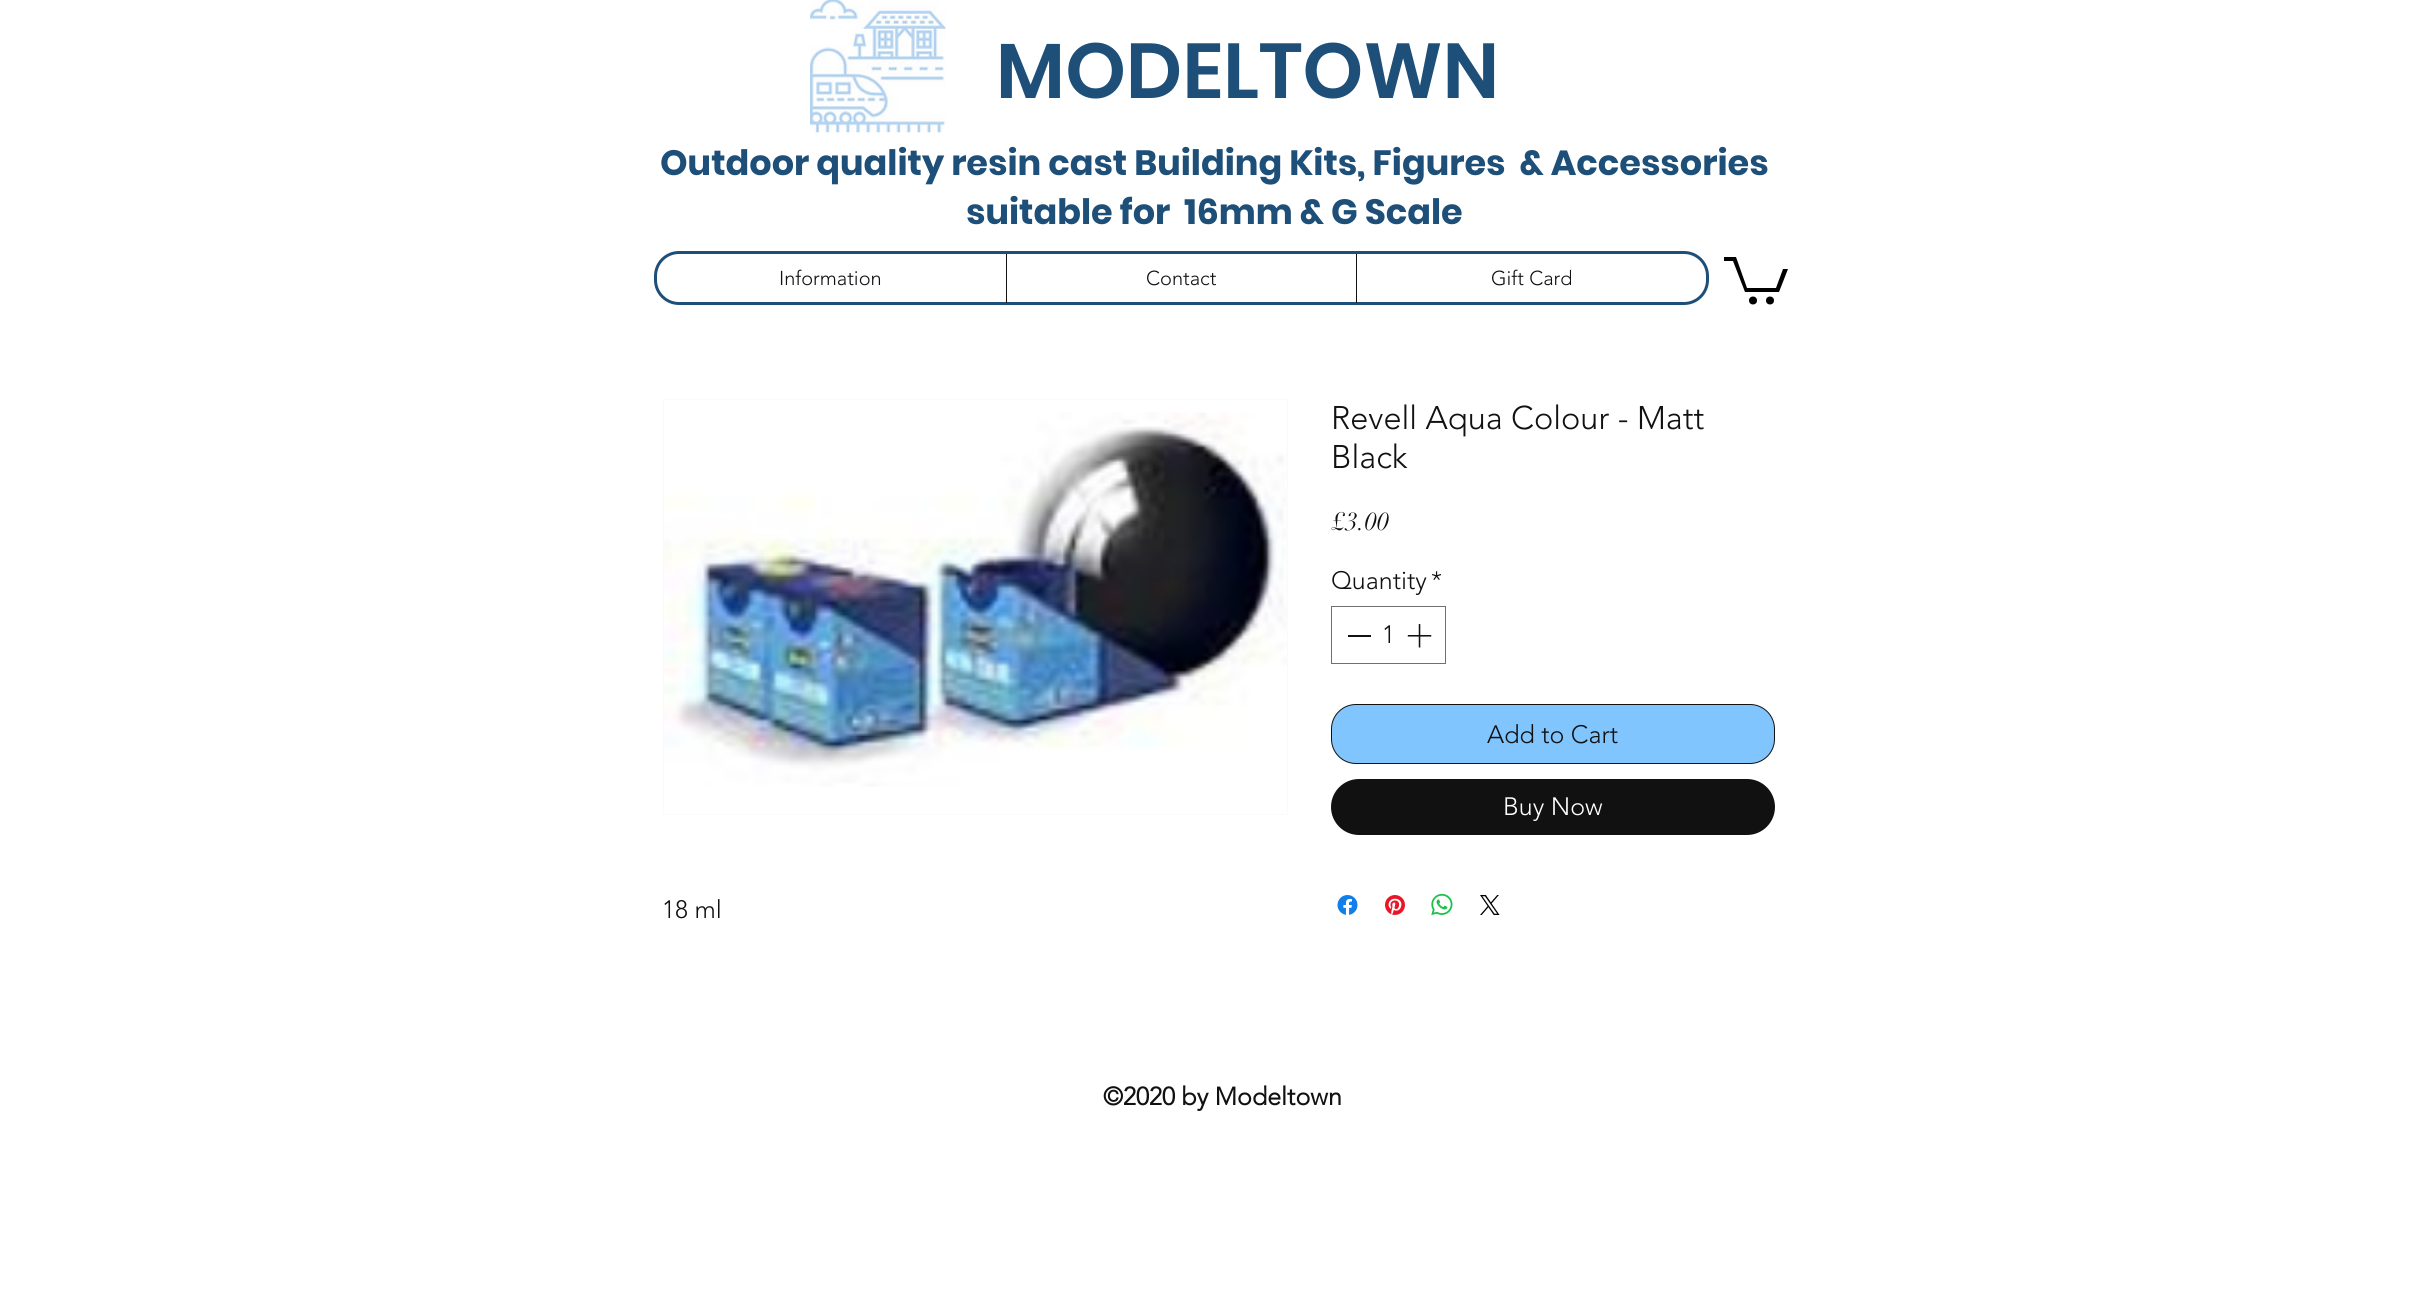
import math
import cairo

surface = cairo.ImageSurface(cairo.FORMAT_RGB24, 2428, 1315)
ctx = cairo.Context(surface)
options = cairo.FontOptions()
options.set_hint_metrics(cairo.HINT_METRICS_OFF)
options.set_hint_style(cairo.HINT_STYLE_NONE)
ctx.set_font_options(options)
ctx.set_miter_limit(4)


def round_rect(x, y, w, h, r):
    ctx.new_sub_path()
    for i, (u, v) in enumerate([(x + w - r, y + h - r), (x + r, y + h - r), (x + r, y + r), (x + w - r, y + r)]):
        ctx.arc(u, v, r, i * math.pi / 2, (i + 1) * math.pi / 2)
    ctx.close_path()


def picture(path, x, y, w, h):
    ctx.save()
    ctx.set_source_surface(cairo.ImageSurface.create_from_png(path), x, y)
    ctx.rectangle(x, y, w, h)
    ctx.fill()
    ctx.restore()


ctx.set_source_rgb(1, 1, 1)
ctx.paint()
picture("img1.png", 810, 0, 136, 133)
ctx.select_font_face("Poppins SemiBold")
ctx.set_font_size(77.5)
ctx.set_source_rgb(0.118, 0.31, 0.471)
ctx.move_to(996, 98)
ctx.show_text("MODELTOWN")
ctx.select_font_face("Poppins", cairo.FONT_SLANT_NORMAL, cairo.FONT_WEIGHT_BOLD)
ctx.set_font_size(35)
ctx.move_to(660, 175)
ctx.show_text("Outdoor quality resin cast Building Kits, Figures  & Accessories")
ctx.move_to(966, 224)
ctx.show_text("suitable for  16mm & G Scale")
round_rect(655.5, 252.5, 1052, 51, 23.5)
ctx.set_line_width(3)
ctx.stroke()
ctx.select_font_face("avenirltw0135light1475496 Light")
ctx.set_font_size(20)
ctx.set_source_rgb(0.067, 0.067, 0.067)
ctx.move_to(779, 285)
ctx.show_text("Information")
ctx.rectangle(1006, 254, 1, 49)
ctx.fill()
ctx.move_to(1146, 285)
ctx.show_text("Contact")
ctx.rectangle(1356, 254, 1, 49)
ctx.fill()
ctx.move_to(1491, 285)
ctx.show_text("Gift Card")
ctx.set_source_rgb(0, 0, 0)
ctx.new_path()
ctx.move_to(1788, 269)
ctx.line_to(1779, 292)
ctx.line_to(1745, 292)
ctx.line_to(1733, 261)
ctx.line_to(1724, 261)
ctx.line_to(1724, 257)
ctx.line_to(1736, 257)
ctx.line_to(1747, 288)
ctx.line_to(1776, 288)
ctx.line_to(1783, 269)
ctx.fill()
ctx.arc(1770, 300.5, 4, 0, 2 * math.pi)
ctx.fill()
ctx.arc(1753, 300.5, 4, 0, 2 * math.pi)
ctx.fill()
ctx.set_font_size(32.5)
ctx.set_source_rgb(0.067, 0.067, 0.067)
ctx.move_to(1331, 429)
ctx.show_text("Revell Aqua Colour - Matt")
ctx.move_to(1331, 468)
ctx.show_text("Black")
ctx.select_font_face("didot")
ctx.set_font_size(25)
ctx.move_to(1331, 530)
ctx.show_text("£3.00")
ctx.select_font_face("avenirltw0135light1475496 Light")
ctx.move_to(1331, 589)
ctx.show_text("Quantity")
ctx.move_to(1431, 589)
ctx.show_text("*")
ctx.rectangle(1331.5, 606.5, 114, 57)
ctx.set_source_rgb(0.439, 0.439, 0.439)
ctx.set_line_width(1)
ctx.stroke()
ctx.set_source_rgb(0.067, 0.067, 0.067)
ctx.rectangle(1348, 635, 23, 2)
ctx.fill()
ctx.move_to(1382, 643)
ctx.show_text("1")
picture("img2.png", 1407, 624, 25, 24)
ctx.set_source_rgb(0.502, 0.773, 0.996)
round_rect(1331.5, 704.5, 443, 59, 24.5)
ctx.fill_preserve()
ctx.set_source_rgb(0.067, 0.067, 0.067)
ctx.stroke()
ctx.move_to(1487, 743)
ctx.show_text("Add to Cart")
round_rect(1331, 779, 444, 56, 28)
ctx.fill()
ctx.set_source_rgb(1, 1, 1)
ctx.move_to(1503, 815)
ctx.show_text("Buy Now")
picture("img3.png", 1337, 895, 21, 20)
picture("img4.png", 1385, 895, 20, 20)
picture("img5.png", 1431, 893, 22, 23)
picture("img6.png", 1480, 895, 20, 20)
ctx.rectangle(663.5, 399.5, 624, 415)
ctx.set_source_rgb(0.98, 0.98, 0.98)
ctx.stroke()
picture("img7.png", 664, 412, 623, 375)
ctx.set_source_rgb(0.067, 0.067, 0.067)
ctx.move_to(662, 918)
ctx.show_text("18 ml")
ctx.select_font_face("avenirltw0135light1475496", cairo.FONT_SLANT_NORMAL, cairo.FONT_WEIGHT_BOLD)
ctx.move_to(1103, 1105)
ctx.show_text("©2020 by Modeltown")
surface.write_to_png("page.png")
